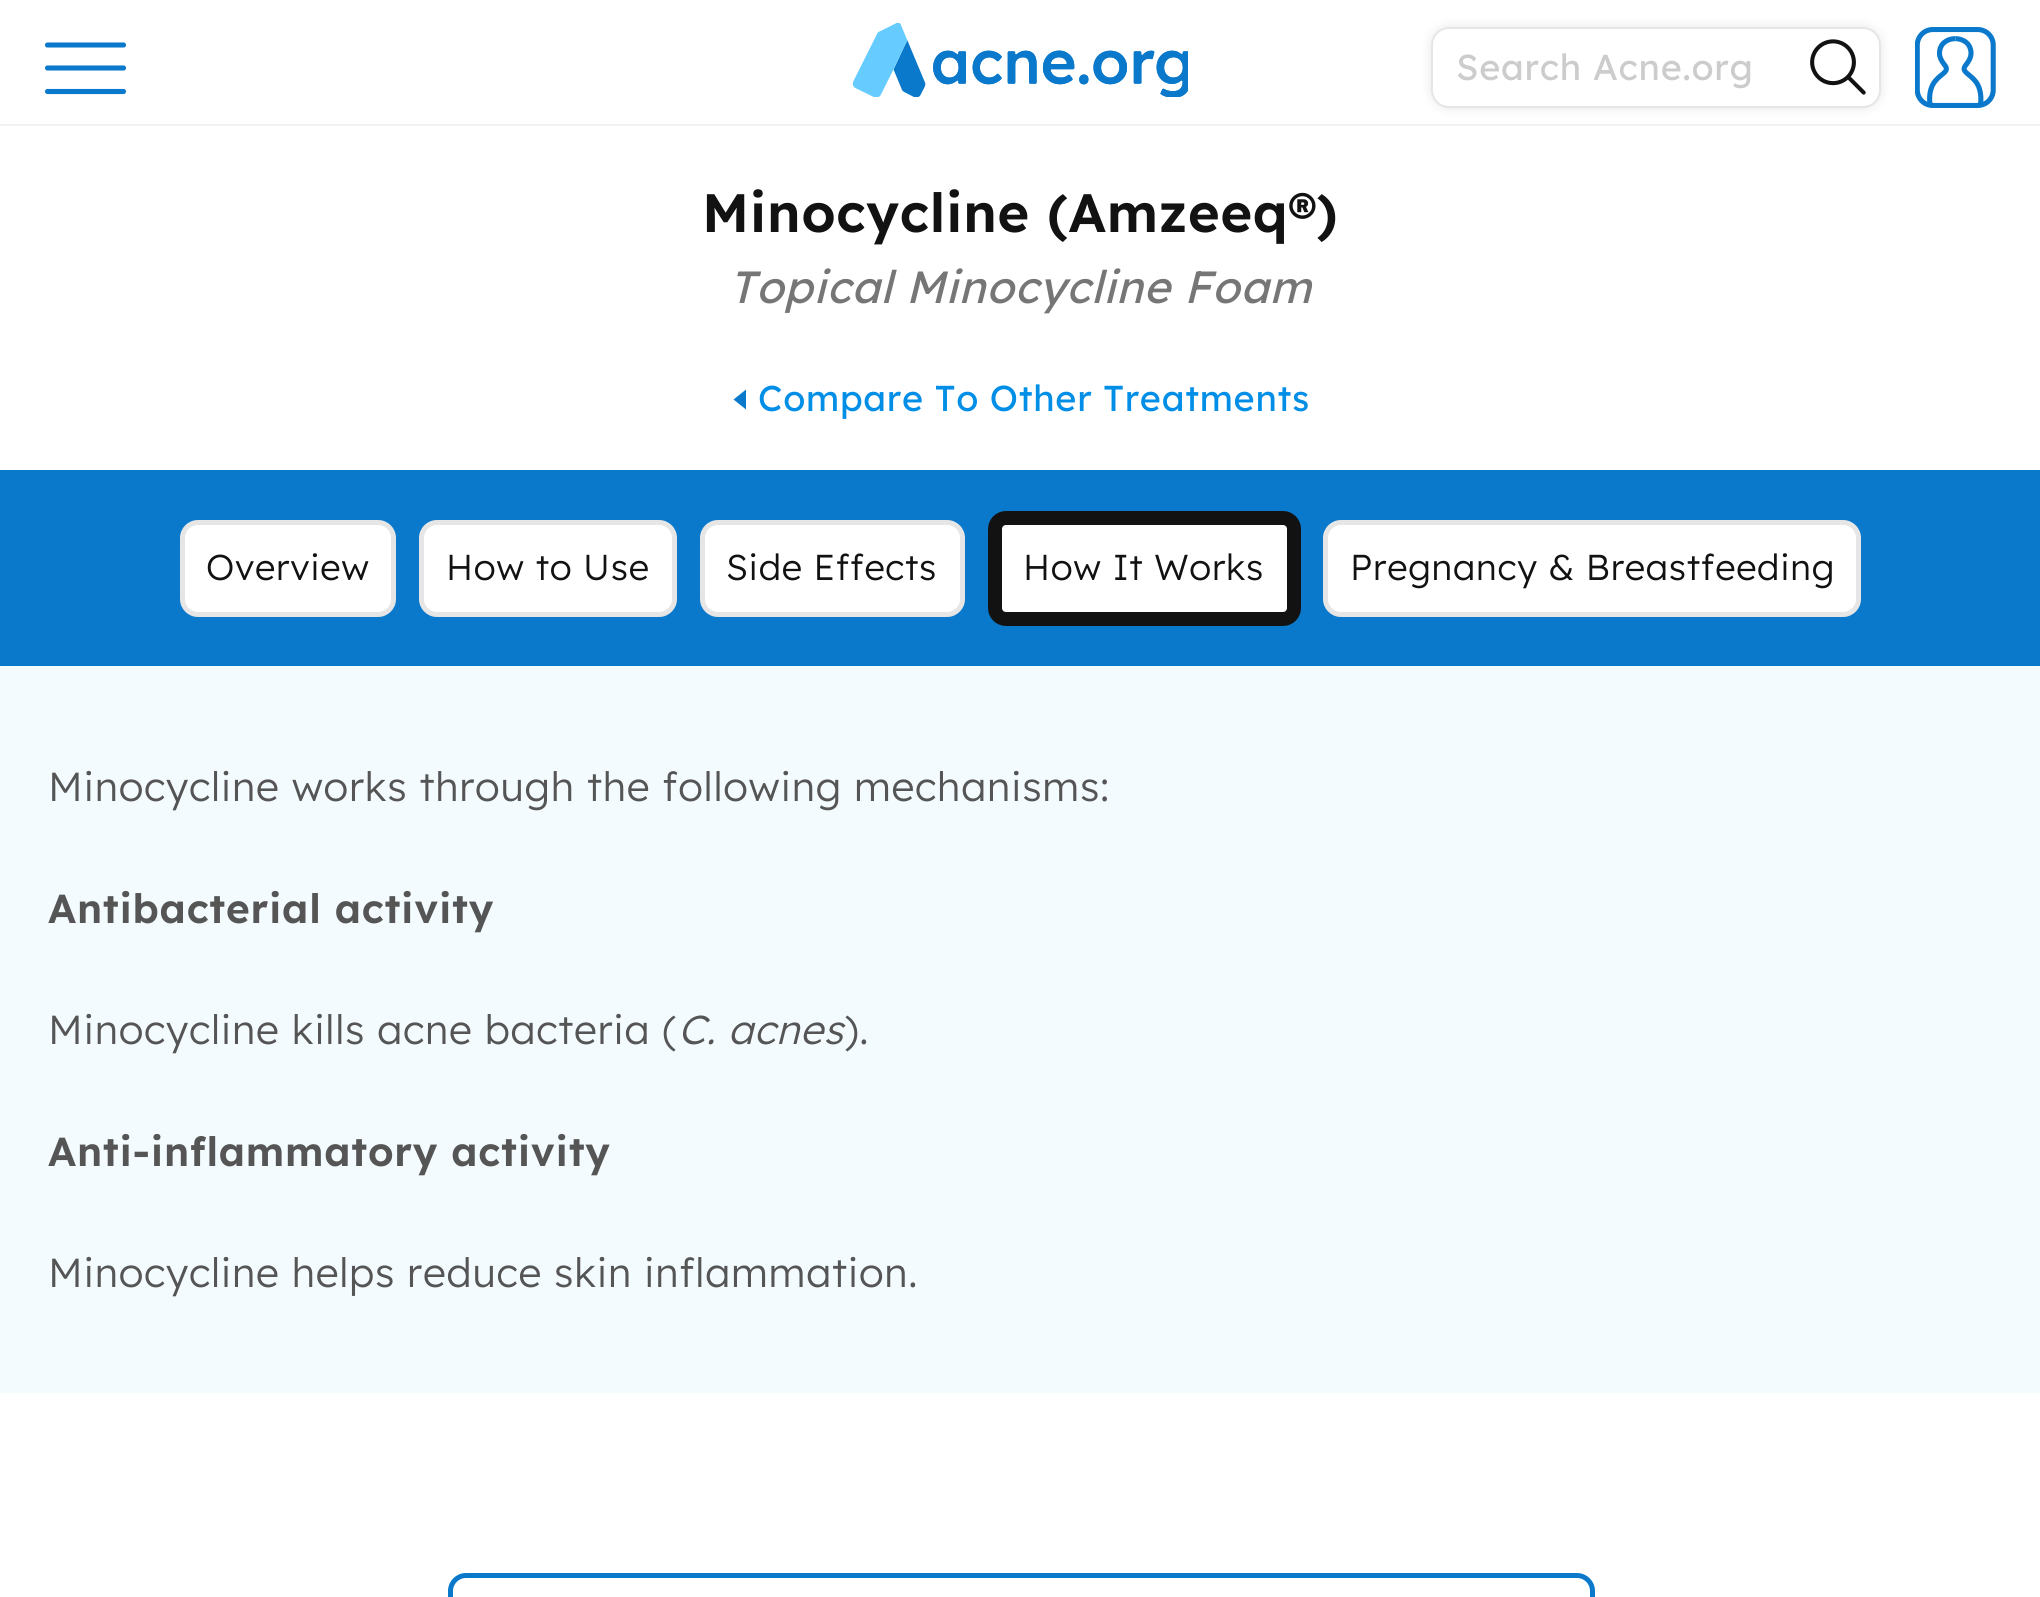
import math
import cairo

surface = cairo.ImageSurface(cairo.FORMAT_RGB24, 2040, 1597)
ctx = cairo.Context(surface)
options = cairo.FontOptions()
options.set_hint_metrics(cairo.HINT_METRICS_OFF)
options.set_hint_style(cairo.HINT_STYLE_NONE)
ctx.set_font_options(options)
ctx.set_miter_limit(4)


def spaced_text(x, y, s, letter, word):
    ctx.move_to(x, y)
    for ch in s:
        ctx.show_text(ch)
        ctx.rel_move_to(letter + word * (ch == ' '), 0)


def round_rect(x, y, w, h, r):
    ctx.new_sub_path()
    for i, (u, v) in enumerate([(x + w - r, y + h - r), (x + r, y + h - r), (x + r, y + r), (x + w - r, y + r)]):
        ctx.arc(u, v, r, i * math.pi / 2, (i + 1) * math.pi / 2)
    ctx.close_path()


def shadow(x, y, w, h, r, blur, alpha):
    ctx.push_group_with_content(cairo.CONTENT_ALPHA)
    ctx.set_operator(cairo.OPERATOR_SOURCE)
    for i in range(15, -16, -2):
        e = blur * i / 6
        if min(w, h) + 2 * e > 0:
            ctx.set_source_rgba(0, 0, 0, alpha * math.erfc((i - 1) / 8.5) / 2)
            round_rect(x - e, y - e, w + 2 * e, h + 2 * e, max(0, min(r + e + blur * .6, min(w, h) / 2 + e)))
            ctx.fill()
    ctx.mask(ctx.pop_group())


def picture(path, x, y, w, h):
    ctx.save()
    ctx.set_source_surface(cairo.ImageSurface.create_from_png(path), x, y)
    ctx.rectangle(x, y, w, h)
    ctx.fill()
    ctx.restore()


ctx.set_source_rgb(1, 1, 1)
ctx.paint()
ctx.set_source_rgb(0.945, 0.945, 0.945)
ctx.rectangle(0, 124, 2040, 2)
ctx.fill()
ctx.new_path()
ctx.move_to(47.5, 45)
ctx.line_to(123.5, 45)
ctx.set_source_rgb(0.043, 0.475, 0.796)
ctx.set_line_width(5.1)
ctx.set_line_cap(cairo.LINE_CAP_ROUND)
ctx.stroke()
ctx.new_path()
ctx.move_to(47.5, 68)
ctx.line_to(123.5, 68)
ctx.stroke()
ctx.new_path()
ctx.move_to(47.5, 91.5)
ctx.line_to(123.5, 91.5)
ctx.stroke()
picture("img1.png", 853, 23, 335, 74)
ctx.set_source_rgb(0, 0, 0)
shadow(1431, 27, 450, 81, 18, 5.5, 0.1)
ctx.set_source_rgb(1, 1, 1)
round_rect(1432, 28, 448, 79, 17)
ctx.fill_preserve()
ctx.set_source_rgb(0.902, 0.902, 0.902)
ctx.set_line_width(2)
ctx.set_line_cap(cairo.LINE_CAP_BUTT)
ctx.stroke()
ctx.select_font_face("Lexend Deca")
ctx.set_font_size(36)
ctx.set_source_rgb(0.8, 0.8, 0.8)
spaced_text(1456, 80, "Search Acne.org", 0.72, 0)
picture("img2.png", 1810, 39, 56, 56)
picture("img3.png", 1915, 27, 81, 81)
ctx.select_font_face("Lexend Deca SemiBold")
ctx.set_font_size(54)
ctx.set_source_rgb(0.071, 0.071, 0.071)
spaced_text(702, 232, "Minocycline (Amzeeq®)", 0.72, 0)
ctx.select_font_face("Lexend Deca", cairo.FONT_SLANT_ITALIC)
ctx.set_font_size(45)
ctx.set_source_rgb(0.463, 0.463, 0.463)
spaced_text(729, 303, "Topical Minocycline Foam", 0.72, 0)
ctx.set_source_rgb(0.043, 0.475, 0.796)
ctx.new_path()
ctx.move_to(746, 409.5)
ctx.line_to(733.5, 399.5)
ctx.line_to(746, 389.5)
ctx.close_path()
ctx.fill()
ctx.select_font_face("Lexend Deca")
ctx.set_font_size(36)
ctx.set_source_rgb(0, 0.557, 0.906)
spaced_text(758, 411, "Compare To Other Treatments", 0.72, 0)
ctx.set_source_rgb(0.043, 0.475, 0.796)
ctx.rectangle(0, 470, 2040, 196)
ctx.fill()
ctx.set_source_rgb(1, 1, 1)
round_rect(182.5, 522.5, 211, 92, 15.5)
ctx.fill_preserve()
ctx.set_source_rgb(0.902, 0.902, 0.902)
ctx.set_line_width(5)
ctx.stroke()
ctx.select_font_face("Lexend Deca Light")
ctx.set_source_rgb(0.071, 0.071, 0.071)
spaced_text(206, 580, "Overview", 0.72, 0)
ctx.set_source_rgb(1, 1, 1)
round_rect(421.5, 522.5, 253, 92, 15.5)
ctx.fill_preserve()
ctx.set_source_rgb(0.902, 0.902, 0.902)
ctx.stroke()
ctx.set_source_rgb(0.071, 0.071, 0.071)
spaced_text(446, 580, "How to Use", 0.72, 0)
ctx.set_source_rgb(1, 1, 1)
round_rect(702.5, 522.5, 260, 92, 15.5)
ctx.fill_preserve()
ctx.set_source_rgb(0.902, 0.902, 0.902)
ctx.stroke()
ctx.set_source_rgb(0.071, 0.071, 0.071)
spaced_text(726, 580, "Side Effects", 0.72, 0)
ctx.set_source_rgb(1, 1, 1)
round_rect(995, 518, 299, 101, 11)
ctx.fill_preserve()
ctx.set_source_rgb(0.071, 0.071, 0.071)
ctx.set_line_width(14)
ctx.stroke()
spaced_text(1023, 580, "How It Works", 0.72, 0)
ctx.set_source_rgb(1, 1, 1)
round_rect(1325.5, 522.5, 533, 92, 15.5)
ctx.fill_preserve()
ctx.set_source_rgb(0.902, 0.902, 0.902)
ctx.set_line_width(5)
ctx.stroke()
ctx.set_source_rgb(0.071, 0.071, 0.071)
spaced_text(1350, 580, "Pregnancy & Breastfeeding", 0.72, 0)
ctx.set_source_rgb(0.953, 0.984, 1)
ctx.rectangle(0, 666, 2040, 727)
ctx.fill()
ctx.set_font_size(40.5)
ctx.set_source_rgb(0.333, 0.333, 0.333)
spaced_text(48, 801, "Minocycline works through the following mechanisms:", 0.72, 0)
ctx.select_font_face("Lexend Deca SemiBold")
spaced_text(48, 923, "Antibacterial activity", 0.72, 0)
ctx.select_font_face("Lexend Deca Light")
spaced_text(48, 1044, "Minocycline kills acne bacteria (", 0.72, 0)
ctx.select_font_face("Lexend Deca Light", cairo.FONT_SLANT_ITALIC)
spaced_text(678, 1044, "C. acnes", 0.72, 0)
ctx.select_font_face("Lexend Deca Light")
spaced_text(844, 1044, ").", 0.72, 0)
ctx.select_font_face("Lexend Deca SemiBold")
spaced_text(48, 1166, "Anti-inflammatory activity", 0.72, 0)
ctx.select_font_face("Lexend Deca Light")
spaced_text(48, 1287, "Minocycline helps reduce skin inflammation.", 0.72, 0)
round_rect(450.5, 1575.5, 1142, 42, 15.5)
ctx.set_source_rgb(0.043, 0.475, 0.796)
ctx.stroke()
surface.write_to_png("page.png")
